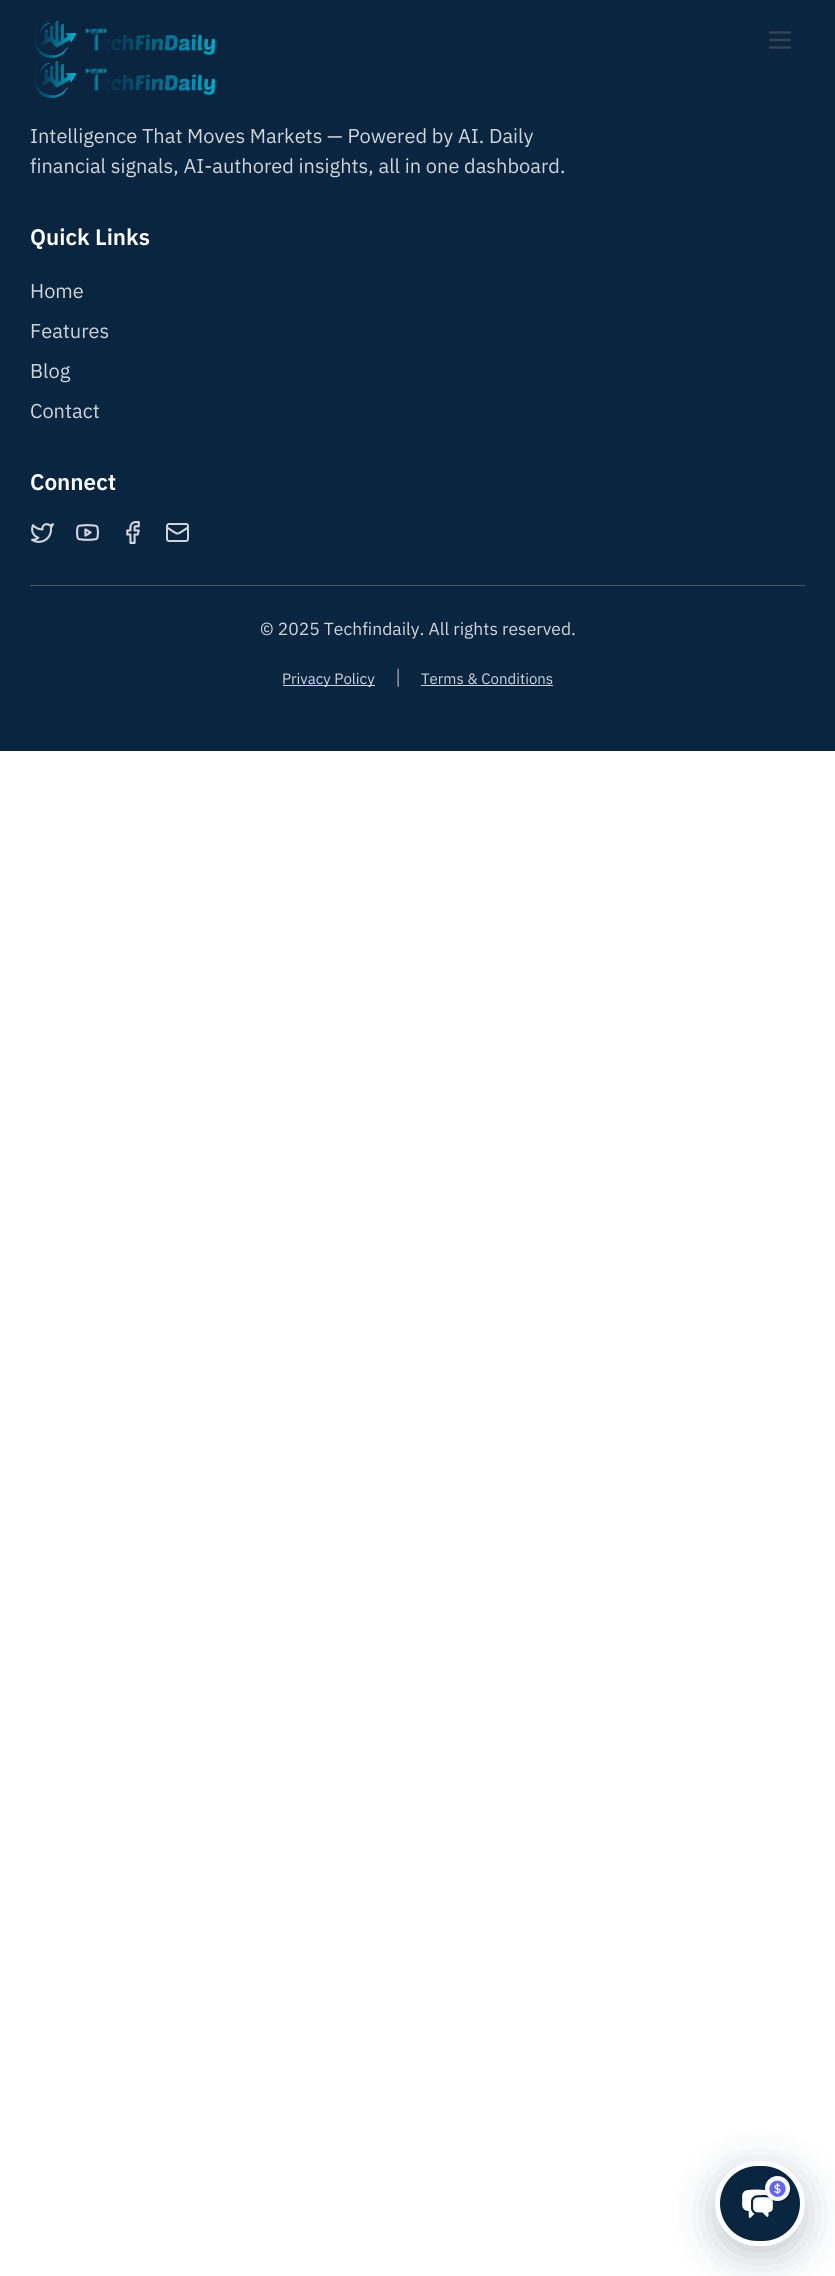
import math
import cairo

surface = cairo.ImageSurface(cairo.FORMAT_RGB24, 835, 2276)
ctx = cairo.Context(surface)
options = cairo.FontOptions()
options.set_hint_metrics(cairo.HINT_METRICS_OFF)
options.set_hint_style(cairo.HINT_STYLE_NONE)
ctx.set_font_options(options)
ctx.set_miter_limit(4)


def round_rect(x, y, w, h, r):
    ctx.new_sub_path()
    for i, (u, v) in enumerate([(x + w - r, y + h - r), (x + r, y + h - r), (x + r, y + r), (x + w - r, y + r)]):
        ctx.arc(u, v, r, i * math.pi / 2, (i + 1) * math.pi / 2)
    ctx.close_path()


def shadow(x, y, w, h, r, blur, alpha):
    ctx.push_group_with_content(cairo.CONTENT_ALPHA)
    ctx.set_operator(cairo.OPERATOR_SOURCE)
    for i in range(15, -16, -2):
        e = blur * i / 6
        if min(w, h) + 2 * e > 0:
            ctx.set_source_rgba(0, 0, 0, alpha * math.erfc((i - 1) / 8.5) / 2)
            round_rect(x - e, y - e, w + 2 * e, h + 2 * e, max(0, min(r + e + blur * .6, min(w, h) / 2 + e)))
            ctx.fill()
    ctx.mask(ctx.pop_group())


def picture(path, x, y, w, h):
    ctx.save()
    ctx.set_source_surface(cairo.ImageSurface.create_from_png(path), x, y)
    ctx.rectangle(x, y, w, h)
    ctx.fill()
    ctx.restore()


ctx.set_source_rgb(1, 1, 1)
ctx.paint()
ctx.set_source_rgb(0.039, 0.145, 0.251)
ctx.rectangle(0, 0, 835, 751)
ctx.fill()
picture("img1.png", 34, 21, 182, 37)
ctx.new_path()
ctx.move_to(770, 40)
ctx.line_to(790, 40)
ctx.move_to(770, 32.5)
ctx.line_to(790, 32.5)
ctx.move_to(770, 47.5)
ctx.line_to(790, 47.5)
ctx.set_source_rgb(0.216, 0.255, 0.318)
ctx.set_line_width(2.5)
ctx.set_line_cap(cairo.LINE_CAP_ROUND)
ctx.set_line_join(cairo.LINE_JOIN_ROUND)
ctx.stroke()
picture("img2.png", 34, 61, 182, 37)
ctx.select_font_face("IBM Plex Sans")
ctx.set_font_size(20)
ctx.set_source_rgb(0.82, 0.835, 0.859)
ctx.move_to(30, 143)
ctx.show_text("Intelligence That Moves Markets — Powered by AI. Daily")
ctx.move_to(30, 173)
ctx.show_text("financial signals, AI-authored insights, all in one dashboard.")
ctx.select_font_face("IBM Plex Sans SemiBold")
ctx.set_font_size(22.5)
ctx.set_source_rgb(1, 1, 1)
ctx.move_to(30, 245)
ctx.show_text("Quick Links")
ctx.select_font_face("IBM Plex Sans")
ctx.set_font_size(20)
ctx.set_source_rgb(0.82, 0.835, 0.859)
ctx.move_to(30, 298)
ctx.show_text("Home")
ctx.move_to(30, 338)
ctx.show_text("Features")
ctx.move_to(30, 378)
ctx.show_text("Blog")
ctx.move_to(30, 418)
ctx.show_text("Contact")
ctx.select_font_face("IBM Plex Sans SemiBold")
ctx.set_font_size(22.5)
ctx.set_source_rgb(1, 1, 1)
ctx.move_to(30, 490)
ctx.show_text("Connect")
picture("img3.png", 31, 523, 23, 20)
picture("img4.png", 76, 524, 23, 17)
picture("img5.png", 126, 521, 14, 23)
round_rect(167, 524, 21, 17, 2)
ctx.set_source_rgb(0.82, 0.835, 0.859)
ctx.set_line_width(2)
ctx.set_line_cap(cairo.LINE_CAP_BUTT)
ctx.set_line_join(cairo.LINE_JOIN_MITER)
ctx.stroke()
ctx.new_path()
ctx.move_to(188, 527.5)
ctx.curve_to(175, 535.5, 180, 535.5, 167, 527.5)
ctx.set_line_width(2.1)
ctx.set_line_cap(cairo.LINE_CAP_ROUND)
ctx.set_line_join(cairo.LINE_JOIN_ROUND)
ctx.stroke()
ctx.set_source_rgb(0.294, 0.333, 0.388)
ctx.rectangle(30, 585, 775, 1)
ctx.fill()
ctx.select_font_face("IBM Plex Sans")
ctx.set_font_size(17.5)
ctx.set_source_rgb(0.82, 0.835, 0.859)
ctx.move_to(260, 635)
ctx.show_text("© 2025 Techfindaily. All rights reserved.")
ctx.rectangle(283, 685, 92, 1)
ctx.fill()
ctx.set_font_size(15)
ctx.move_to(282, 684)
ctx.show_text("Privacy Policy")
ctx.set_font_size(20)
ctx.set_source_rgb(0.612, 0.639, 0.686)
ctx.move_to(395, 684)
ctx.show_text("|")
ctx.set_font_size(15)
ctx.set_source_rgb(0.82, 0.835, 0.859)
ctx.move_to(421, 684)
ctx.show_text("Terms & Conditions")
ctx.rectangle(421, 685, 132, 1)
ctx.fill()
ctx.set_source_rgb(0.039, 0.145, 0.251)
shadow(715, 2171, 90, 85, 42.5, 20, 0.25)
ctx.set_source_rgb(0.039, 0.145, 0.251)
round_rect(717.5, 2163.5, 85, 80, 40)
ctx.fill_preserve()
ctx.set_source_rgb(1, 1, 1)
ctx.set_line_width(5)
ctx.set_line_cap(cairo.LINE_CAP_BUTT)
ctx.set_line_join(cairo.LINE_JOIN_MITER)
ctx.stroke()
picture("img6.png", 742, 2189, 31, 29)
ctx.set_source_rgb(0, 0, 0)
shadow(766, 2179, 23, 22, 11, 1, 0.1)
shadow(765, 2178, 25, 25, 12.5, 2, 0.1)
ctx.set_source_rgb(1, 1, 1)
ctx.arc(777.5, 2188.5, 12.5, 0, 2 * math.pi)
ctx.fill()
picture("img7.png", 769, 2180, 17, 17)
surface.write_to_png("page.png")
